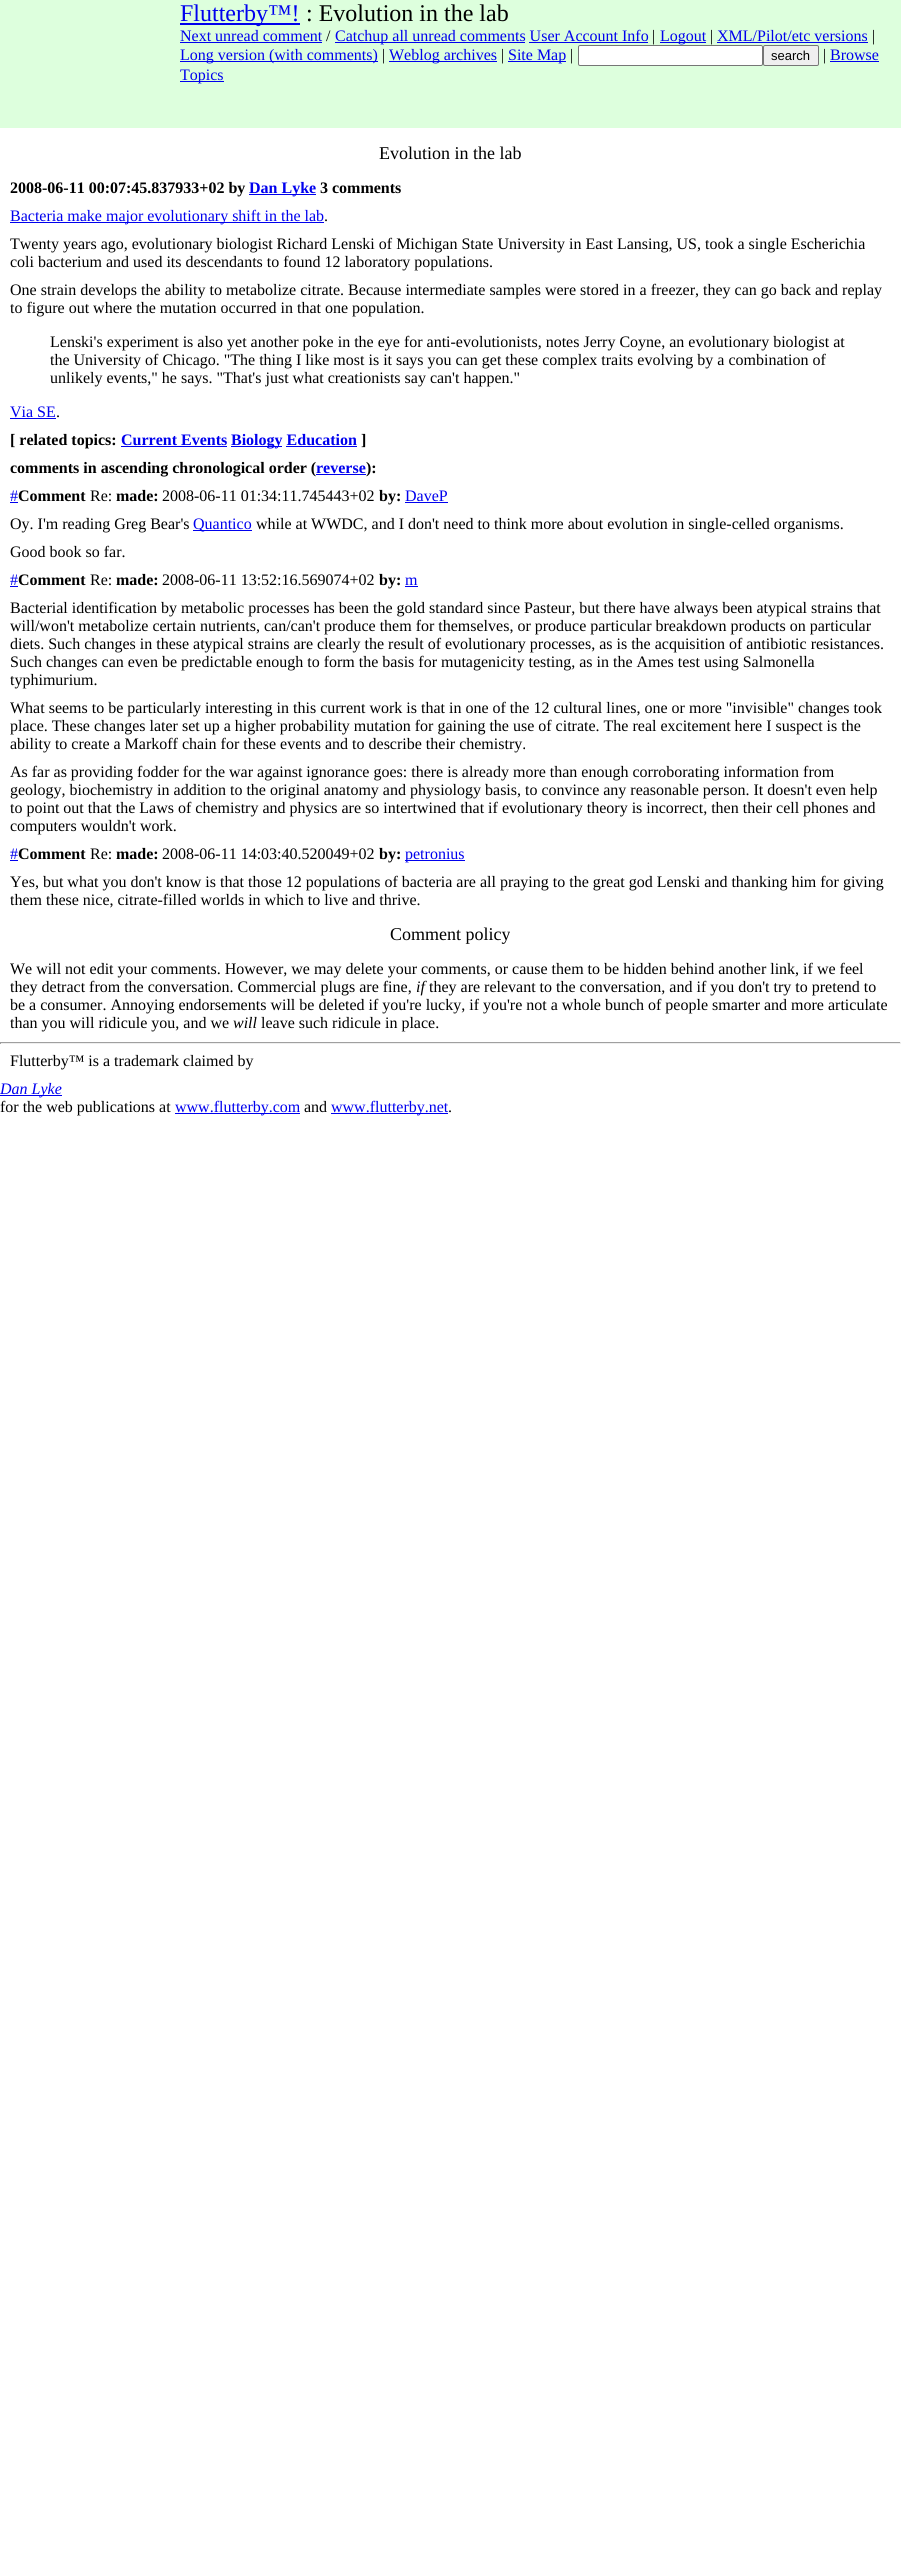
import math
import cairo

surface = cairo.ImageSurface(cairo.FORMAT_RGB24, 901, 2567)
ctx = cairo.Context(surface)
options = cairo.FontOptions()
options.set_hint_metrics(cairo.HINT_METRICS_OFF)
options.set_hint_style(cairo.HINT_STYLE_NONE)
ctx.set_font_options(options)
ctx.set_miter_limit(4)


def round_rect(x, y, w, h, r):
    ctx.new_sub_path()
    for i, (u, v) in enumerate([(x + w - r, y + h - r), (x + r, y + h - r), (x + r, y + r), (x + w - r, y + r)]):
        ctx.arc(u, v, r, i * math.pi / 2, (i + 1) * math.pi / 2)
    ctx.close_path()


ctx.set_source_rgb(1, 1, 1)
ctx.paint()
ctx.set_source_rgb(0.867, 1, 0.867)
ctx.rectangle(0, 0, 901, 128)
ctx.fill()
ctx.set_source_rgb(0, 0, 0.933)
ctx.rectangle(180, 23, 120, 2)
ctx.fill()
ctx.select_font_face("Liberation Serif")
ctx.set_font_size(24)
ctx.move_to(180, 21)
ctx.show_text("Flutterby™!")
ctx.set_source_rgb(0, 0, 0)
ctx.move_to(306, 21)
ctx.show_text(": Evolution in the lab")
ctx.set_font_size(16)
ctx.set_source_rgb(0, 0, 0.933)
ctx.move_to(180, 41)
ctx.show_text("Next unread comment")
ctx.rectangle(180, 42, 142, 1)
ctx.fill()
ctx.set_source_rgb(0, 0, 0)
ctx.move_to(326, 41)
ctx.show_text("/")
ctx.set_source_rgb(0, 0, 0.933)
ctx.rectangle(335, 42, 190, 1)
ctx.fill()
ctx.move_to(335, 41)
ctx.show_text("Catchup all unread comments User Account Info")
ctx.set_source_rgb(0, 0, 0)
ctx.move_to(652, 41)
ctx.show_text("|")
ctx.set_source_rgb(0, 0, 0.933)
ctx.rectangle(660, 42, 46, 1)
ctx.fill()
ctx.move_to(660, 41)
ctx.show_text("Logout")
ctx.set_source_rgb(0, 0, 0)
ctx.move_to(710, 41)
ctx.show_text("|")
ctx.set_source_rgb(0, 0, 0.933)
ctx.move_to(717, 41)
ctx.show_text("XML/Pilot/etc versions")
ctx.rectangle(717, 42, 151, 1)
ctx.fill()
ctx.set_source_rgb(0, 0, 0)
ctx.move_to(872, 41)
ctx.show_text("|")
ctx.set_source_rgb(0, 0, 0.933)
ctx.rectangle(529, 42, 119, 1)
ctx.fill()
ctx.rectangle(180, 61, 198, 1)
ctx.fill()
ctx.move_to(180, 60)
ctx.show_text("Long version (with comments)")
ctx.set_source_rgb(0, 0, 0)
ctx.move_to(382, 60)
ctx.show_text("|")
ctx.set_source_rgb(0, 0, 0.933)
ctx.rectangle(389, 61, 108, 1)
ctx.fill()
ctx.move_to(389, 60)
ctx.show_text("Weblog archives")
ctx.set_source_rgb(0, 0, 0)
ctx.move_to(501, 60)
ctx.show_text("|")
ctx.set_source_rgb(0, 0, 0.933)
ctx.rectangle(508, 61, 58, 1)
ctx.fill()
ctx.move_to(508, 60)
ctx.show_text("Site Map")
ctx.set_source_rgb(0, 0, 0)
ctx.move_to(570, 60)
ctx.show_text("|")
ctx.set_source_rgb(1, 1, 1)
round_rect(578.5, 45.5, 184, 20, 1.5)
ctx.fill_preserve()
ctx.set_source_rgb(0.463, 0.463, 0.463)
ctx.set_line_width(1)
ctx.stroke()
ctx.set_source_rgb(0.937, 0.937, 0.937)
round_rect(763.5, 45.5, 55, 20, 1.5)
ctx.fill_preserve()
ctx.set_source_rgb(0.463, 0.463, 0.463)
ctx.stroke()
ctx.select_font_face("Liberation Sans")
ctx.set_font_size(13)
ctx.set_source_rgb(0, 0, 0)
ctx.move_to(771, 60)
ctx.show_text("search")
ctx.select_font_face("Liberation Serif")
ctx.set_font_size(16)
ctx.move_to(823, 60)
ctx.show_text("|")
ctx.set_source_rgb(0, 0, 0.933)
ctx.move_to(830, 60)
ctx.show_text("Browse")
ctx.rectangle(830, 61, 49, 1)
ctx.fill()
ctx.rectangle(180, 81, 44, 1)
ctx.fill()
ctx.move_to(180, 80)
ctx.show_text("Topics")
ctx.set_font_size(18)
ctx.set_source_rgb(0, 0, 0)
ctx.move_to(379, 159)
ctx.show_text("Evolution in the lab")
ctx.select_font_face("Liberation Serif", cairo.FONT_SLANT_NORMAL, cairo.FONT_WEIGHT_BOLD)
ctx.set_font_size(16)
ctx.move_to(10, 193)
ctx.show_text("2008-06-11 00:07:45.837933+02 by")
ctx.set_source_rgb(0, 0, 0.933)
ctx.rectangle(249, 194, 67, 1)
ctx.fill()
ctx.move_to(249, 193)
ctx.show_text("Dan Lyke")
ctx.set_source_rgb(0, 0, 0)
ctx.move_to(320, 193)
ctx.show_text("3 comments")
ctx.set_source_rgb(0, 0, 0.933)
ctx.rectangle(10, 222, 314, 1)
ctx.fill()
ctx.select_font_face("Liberation Serif")
ctx.move_to(10, 221)
ctx.show_text("Bacteria make major evolutionary shift in the lab")
ctx.set_source_rgb(0, 0, 0)
ctx.move_to(324, 221)
ctx.show_text(".")
ctx.move_to(10, 249)
ctx.show_text("Twenty years ago, evolutionary biologist Richard Lenski of Michigan State University in East Lansing, US, took a single Escherichia")
ctx.move_to(10, 267)
ctx.show_text("coli bacterium and used its descendants to found 12 laboratory populations.")
ctx.move_to(10, 295)
ctx.show_text("One strain develops the ability to metabolize citrate. Because intermediate samples were stored in a freezer, they can go back and replay")
ctx.move_to(10, 313)
ctx.show_text("to figure out where the mutation occurred in that one population.")
ctx.move_to(50, 347)
ctx.show_text("Lenski's experiment is also yet another poke in the eye for anti-evolutionists, notes Jerry Coyne, an evolutionary biologist at")
ctx.move_to(50, 365)
ctx.show_text("the University of Chicago. \"The thing I like most is it says you can get these complex traits evolving by a combination of")
ctx.move_to(50, 383)
ctx.show_text("unlikely events,\" he says. \"That's just what creationists say can't happen.\"")
ctx.set_source_rgb(0, 0, 0.933)
ctx.move_to(10, 417)
ctx.show_text("Via SE")
ctx.rectangle(10, 418, 46, 1)
ctx.fill()
ctx.set_source_rgb(0, 0, 0)
ctx.move_to(56, 417)
ctx.show_text(".")
ctx.select_font_face("Liberation Serif", cairo.FONT_SLANT_NORMAL, cairo.FONT_WEIGHT_BOLD)
ctx.move_to(10, 445)
ctx.show_text("[ related topics:")
ctx.set_source_rgb(0, 0, 0.933)
ctx.move_to(121, 445)
ctx.show_text("Current Events")
ctx.rectangle(121, 446, 106, 1)
ctx.fill()
ctx.rectangle(231, 446, 51, 1)
ctx.fill()
ctx.move_to(231, 445)
ctx.show_text("Biology Education")
ctx.rectangle(286, 446, 71, 1)
ctx.fill()
ctx.set_source_rgb(0, 0, 0)
ctx.move_to(361, 445)
ctx.show_text("]")
ctx.move_to(10, 473)
ctx.show_text("comments in ascending chronological order (")
ctx.set_source_rgb(0, 0, 0.933)
ctx.move_to(316, 473)
ctx.show_text("reverse")
ctx.rectangle(316, 474, 50, 1)
ctx.fill()
ctx.set_source_rgb(0, 0, 0)
ctx.move_to(366, 473)
ctx.show_text("):")
ctx.select_font_face("Liberation Serif")
ctx.set_source_rgb(0, 0, 0.933)
ctx.move_to(10, 501)
ctx.show_text("#")
ctx.rectangle(10, 502, 8, 1)
ctx.fill()
ctx.select_font_face("Liberation Serif", cairo.FONT_SLANT_NORMAL, cairo.FONT_WEIGHT_BOLD)
ctx.set_source_rgb(0, 0, 0)
ctx.move_to(18, 501)
ctx.show_text("Comment")
ctx.select_font_face("Liberation Serif")
ctx.move_to(90, 501)
ctx.show_text("Re:")
ctx.select_font_face("Liberation Serif", cairo.FONT_SLANT_NORMAL, cairo.FONT_WEIGHT_BOLD)
ctx.move_to(116, 501)
ctx.show_text("made:")
ctx.select_font_face("Liberation Serif")
ctx.move_to(162, 501)
ctx.show_text("2008-06-11 01:34:11.745443+02")
ctx.select_font_face("Liberation Serif", cairo.FONT_SLANT_NORMAL, cairo.FONT_WEIGHT_BOLD)
ctx.move_to(379, 501)
ctx.show_text("by:")
ctx.select_font_face("Liberation Serif")
ctx.set_source_rgb(0, 0, 0.933)
ctx.move_to(405, 501)
ctx.show_text("DaveP")
ctx.rectangle(405, 502, 43, 1)
ctx.fill()
ctx.set_source_rgb(0, 0, 0)
ctx.move_to(10, 529)
ctx.show_text("Oy. I'm reading Greg Bear's")
ctx.set_source_rgb(0, 0, 0.933)
ctx.rectangle(193, 530, 59, 1)
ctx.fill()
ctx.move_to(193, 529)
ctx.show_text("Quantico")
ctx.set_source_rgb(0, 0, 0)
ctx.move_to(256, 529)
ctx.show_text("while at WWDC, and I don't need to think more about evolution in single-celled organisms.")
ctx.move_to(10, 557)
ctx.show_text("Good book so far.")
ctx.set_source_rgb(0, 0, 0.933)
ctx.move_to(10, 585)
ctx.show_text("#")
ctx.rectangle(10, 586, 8, 1)
ctx.fill()
ctx.select_font_face("Liberation Serif", cairo.FONT_SLANT_NORMAL, cairo.FONT_WEIGHT_BOLD)
ctx.set_source_rgb(0, 0, 0)
ctx.move_to(18, 585)
ctx.show_text("Comment")
ctx.select_font_face("Liberation Serif")
ctx.move_to(90, 585)
ctx.show_text("Re:")
ctx.select_font_face("Liberation Serif", cairo.FONT_SLANT_NORMAL, cairo.FONT_WEIGHT_BOLD)
ctx.move_to(116, 585)
ctx.show_text("made:")
ctx.select_font_face("Liberation Serif")
ctx.move_to(162, 585)
ctx.show_text("2008-06-11 13:52:16.569074+02")
ctx.select_font_face("Liberation Serif", cairo.FONT_SLANT_NORMAL, cairo.FONT_WEIGHT_BOLD)
ctx.move_to(379, 585)
ctx.show_text("by:")
ctx.select_font_face("Liberation Serif")
ctx.set_source_rgb(0, 0, 0.933)
ctx.move_to(405, 585)
ctx.show_text("m")
ctx.rectangle(405, 586, 13, 1)
ctx.fill()
ctx.set_source_rgb(0, 0, 0)
ctx.move_to(10, 613)
ctx.show_text("Bacterial identification by metabolic processes has been the gold standard since Pasteur, but there have always been atypical strains that")
ctx.move_to(10, 631)
ctx.show_text("will/won't metabolize certain nutrients, can/can't produce them for themselves, or produce particular breakdown products on particular")
ctx.move_to(10, 649)
ctx.show_text("diets. Such changes in these atypical strains are clearly the result of evolutionary processes, as is the acquisition of antibiotic resistances.")
ctx.move_to(10, 667)
ctx.show_text("Such changes can even be predictable enough to form the basis for mutagenicity testing, as in the Ames test using Salmonella")
ctx.move_to(10, 685)
ctx.show_text("typhimurium.")
ctx.move_to(10, 713)
ctx.show_text("What seems to be particularly interesting in this current work is that in one of the 12 cultural lines, one or more \"invisible\" changes took")
ctx.move_to(10, 731)
ctx.show_text("place. These changes later set up a higher probability mutation for gaining the use of citrate. The real excitement here I suspect is the")
ctx.move_to(10, 749)
ctx.show_text("ability to create a Markoff chain for these events and to describe their chemistry.")
ctx.move_to(10, 777)
ctx.show_text("As far as providing fodder for the war against ignorance goes: there is already more than enough corroborating information from")
ctx.move_to(10, 795)
ctx.show_text("geology, biochemistry in addition to the original anatomy and physiology basis, to convince any reasonable person. It doesn't even help")
ctx.move_to(10, 813)
ctx.show_text("to point out that the Laws of chemistry and physics are so intertwined that if evolutionary theory is incorrect, then their cell phones and")
ctx.move_to(10, 831)
ctx.show_text("computers wouldn't work.")
ctx.set_source_rgb(0, 0, 0.933)
ctx.move_to(10, 859)
ctx.show_text("#")
ctx.rectangle(10, 860, 8, 1)
ctx.fill()
ctx.select_font_face("Liberation Serif", cairo.FONT_SLANT_NORMAL, cairo.FONT_WEIGHT_BOLD)
ctx.set_source_rgb(0, 0, 0)
ctx.move_to(18, 859)
ctx.show_text("Comment")
ctx.select_font_face("Liberation Serif")
ctx.move_to(90, 859)
ctx.show_text("Re:")
ctx.select_font_face("Liberation Serif", cairo.FONT_SLANT_NORMAL, cairo.FONT_WEIGHT_BOLD)
ctx.move_to(116, 859)
ctx.show_text("made:")
ctx.select_font_face("Liberation Serif")
ctx.move_to(162, 859)
ctx.show_text("2008-06-11 14:03:40.520049+02")
ctx.select_font_face("Liberation Serif", cairo.FONT_SLANT_NORMAL, cairo.FONT_WEIGHT_BOLD)
ctx.move_to(379, 859)
ctx.show_text("by:")
ctx.set_source_rgb(0, 0, 0.933)
ctx.rectangle(405, 860, 60, 1)
ctx.fill()
ctx.select_font_face("Liberation Serif")
ctx.move_to(405, 859)
ctx.show_text("petronius")
ctx.set_source_rgb(0, 0, 0)
ctx.move_to(10, 887)
ctx.show_text("Yes, but what you don't know is that those 12 populations of bacteria are all praying to the great god Lenski and thanking him for giving")
ctx.move_to(10, 905)
ctx.show_text("them these nice, citrate-filled worlds in which to live and thrive.")
ctx.set_font_size(18)
ctx.move_to(390, 940)
ctx.show_text("Comment policy")
ctx.set_font_size(16)
ctx.move_to(10, 974)
ctx.show_text("We will not edit your comments. However, we may delete your comments, or cause them to be hidden behind another link, if we feel")
ctx.move_to(10, 992)
ctx.show_text("they detract from the conversation. Commercial plugs are fine,")
ctx.select_font_face("Liberation Serif", cairo.FONT_SLANT_ITALIC)
ctx.move_to(416, 992)
ctx.show_text("if")
ctx.select_font_face("Liberation Serif")
ctx.move_to(429, 992)
ctx.show_text("they are relevant to the conversation, and if you don't try to pretend to")
ctx.move_to(10, 1010)
ctx.show_text("be a consumer. Annoying endorsements will be deleted if you're lucky, if you're not a whole bunch of people smarter and more articulate")
ctx.move_to(10, 1028)
ctx.show_text("than you will ridicule you, and we")
ctx.select_font_face("Liberation Serif", cairo.FONT_SLANT_ITALIC)
ctx.move_to(233, 1028)
ctx.show_text("will")
ctx.select_font_face("Liberation Serif")
ctx.move_to(261, 1028)
ctx.show_text("leave such ridicule in place.")
ctx.set_source_rgb(0.624, 0.624, 0.624)
ctx.rectangle(0, 1042, 901, 1)
ctx.fill()
ctx.set_source_rgb(0.933, 0.933, 0.933)
ctx.rectangle(900, 1042, 1, 2)
ctx.fill()
ctx.rectangle(0, 1043, 901, 1)
ctx.fill()
ctx.set_source_rgb(0.624, 0.624, 0.624)
ctx.rectangle(0, 1042, 1, 2)
ctx.fill()
ctx.set_source_rgb(0, 0, 0)
ctx.move_to(10, 1066)
ctx.show_text("Flutterby™ is a trademark claimed by")
ctx.set_source_rgb(0, 0, 0.933)
ctx.rectangle(0, 1095, 62, 1)
ctx.fill()
ctx.select_font_face("Liberation Serif", cairo.FONT_SLANT_ITALIC)
ctx.move_to(0, 1094)
ctx.show_text("Dan Lyke")
ctx.select_font_face("Liberation Serif")
ctx.set_source_rgb(0, 0, 0)
ctx.move_to(0, 1112)
ctx.show_text("for the web publications at")
ctx.set_source_rgb(0, 0, 0.933)
ctx.rectangle(175, 1113, 125, 1)
ctx.fill()
ctx.move_to(175, 1112)
ctx.show_text("www.flutterby.com")
ctx.set_source_rgb(0, 0, 0)
ctx.move_to(304, 1112)
ctx.show_text("and")
ctx.set_source_rgb(0, 0, 0.933)
ctx.rectangle(331, 1113, 117, 1)
ctx.fill()
ctx.move_to(331, 1112)
ctx.show_text("www.flutterby.net")
ctx.set_source_rgb(0, 0, 0)
ctx.move_to(448, 1112)
ctx.show_text(".")
surface.write_to_png("page.png")
